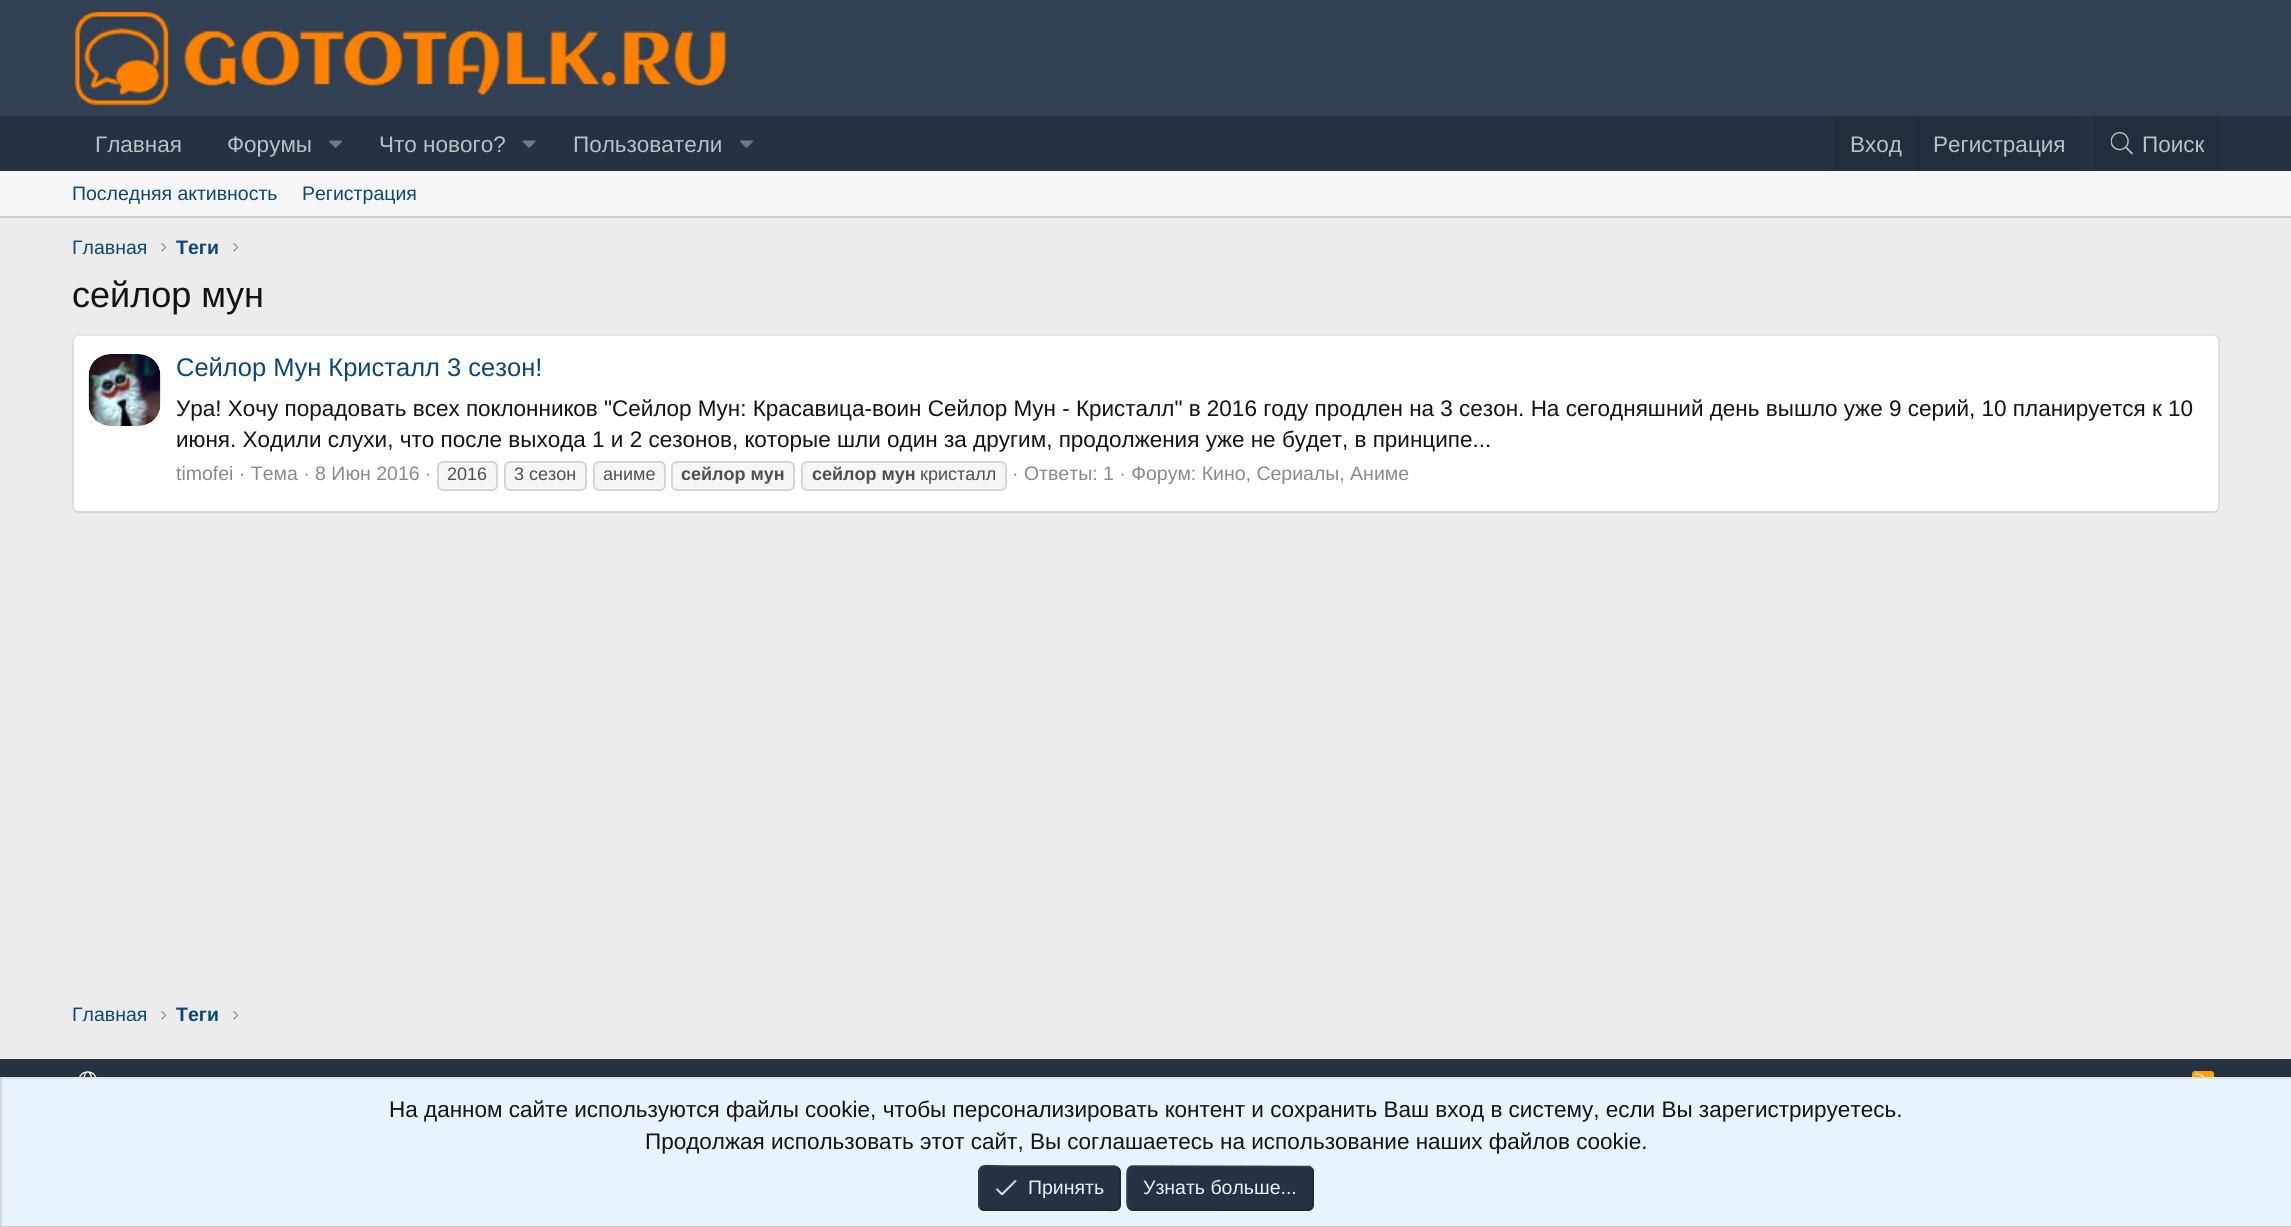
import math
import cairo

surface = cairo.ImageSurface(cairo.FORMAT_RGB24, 2291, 1227)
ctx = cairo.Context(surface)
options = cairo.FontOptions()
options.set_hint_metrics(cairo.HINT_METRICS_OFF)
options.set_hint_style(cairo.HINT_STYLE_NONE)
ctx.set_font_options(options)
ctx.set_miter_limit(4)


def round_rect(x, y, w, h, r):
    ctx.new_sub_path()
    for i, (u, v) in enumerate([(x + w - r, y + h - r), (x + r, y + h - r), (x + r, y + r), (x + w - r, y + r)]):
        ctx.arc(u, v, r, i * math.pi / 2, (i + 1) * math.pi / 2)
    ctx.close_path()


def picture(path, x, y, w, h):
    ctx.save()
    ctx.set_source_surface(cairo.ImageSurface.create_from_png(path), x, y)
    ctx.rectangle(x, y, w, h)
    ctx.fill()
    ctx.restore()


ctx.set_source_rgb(0.922, 0.922, 0.922)
ctx.paint()
ctx.set_source_rgb(0.192, 0.251, 0.322)
ctx.rectangle(0, 0, 2291, 116)
ctx.fill()
picture("img1.png", 74, 11, 653, 95)
ctx.set_source_rgb(0.145, 0.196, 0.259)
ctx.rectangle(0, 116, 2291, 55)
ctx.fill()
ctx.select_font_face("Liberation Sans")
ctx.set_font_size(22.5)
ctx.set_source_rgb(0.741, 0.753, 0.769)
ctx.move_to(95, 152)
ctx.show_text("Главная")
ctx.move_to(227, 152)
ctx.show_text("Форумы")
picture("img2.png", 329, 140, 13, 8)
ctx.move_to(379, 152)
ctx.show_text("Что нового?")
picture("img3.png", 522, 140, 14, 8)
ctx.move_to(573, 152)
ctx.show_text("Пользователи")
picture("img2.png", 740, 140, 13, 8)
ctx.set_source_rgb(0.133, 0.18, 0.231)
ctx.new_path()
ctx.move_to(1841, 116)
ctx.line_to(2075, 116)
ctx.curve_to(2078.5, 116, 2081, 118.5, 2081, 122)
ctx.line_to(2081, 171)
ctx.line_to(1835, 171)
ctx.line_to(1835, 122)
ctx.curve_to(1835, 118.5, 1837.5, 116, 1841, 116)
ctx.close_path()
ctx.fill()
ctx.set_source_rgb(0.741, 0.753, 0.769)
ctx.move_to(1850, 152)
ctx.show_text("Вход")
ctx.set_source_rgb(0.125, 0.165, 0.208)
ctx.rectangle(1917, 116, 2, 55)
ctx.fill()
ctx.set_source_rgb(0.741, 0.753, 0.769)
ctx.move_to(1933, 152)
ctx.show_text("Регистрация")
ctx.set_source_rgb(0.133, 0.18, 0.231)
ctx.new_path()
ctx.move_to(2099, 116)
ctx.line_to(2214, 116)
ctx.curve_to(2217.5, 116, 2220, 118.5, 2220, 122)
ctx.line_to(2220, 171)
ctx.line_to(2093, 171)
ctx.line_to(2093, 122)
ctx.curve_to(2093, 118.5, 2095.5, 116, 2099, 116)
ctx.close_path()
ctx.fill()
picture("img4.png", 2111, 132, 22, 23)
ctx.set_source_rgb(0.741, 0.753, 0.769)
ctx.move_to(2142, 152)
ctx.show_text("Поиск")
ctx.set_source_rgb(0.961, 0.961, 0.961)
ctx.rectangle(0, 171, 2291, 45)
ctx.fill()
ctx.set_source_rgb(0.8, 0.8, 0.8)
ctx.rectangle(0, 216, 2291, 2)
ctx.fill()
ctx.set_font_size(19.5)
ctx.set_source_rgb(0.051, 0.278, 0.451)
ctx.move_to(72, 200)
ctx.show_text("Последняя активность")
ctx.move_to(302, 200)
ctx.show_text("Регистрация")
ctx.move_to(72, 254)
ctx.show_text("Главная")
picture("img5.png", 161, 243, 6, 9)
ctx.select_font_face("Liberation Sans", cairo.FONT_SLANT_NORMAL, cairo.FONT_WEIGHT_BOLD)
ctx.move_to(176, 254)
ctx.show_text("Теги")
picture("img5.png", 233, 243, 6, 9)
ctx.select_font_face("Liberation Sans")
ctx.set_font_size(36)
ctx.set_source_rgb(0.078, 0.078, 0.078)
ctx.move_to(72, 307)
ctx.show_text("сейлор мун")
ctx.set_source_rgb(1, 1, 1)
round_rect(72, 335, 2148, 178, 6)
ctx.fill()
ctx.new_path()
ctx.move_to(74.5, 337)
ctx.curve_to(75.5, 336, 76.5, 335, 78, 335)
ctx.line_to(2214, 335)
ctx.curve_to(2215.5, 335, 2216.5, 336, 2217.5, 337)
ctx.set_source_rgb(0.878, 0.878, 0.878)
ctx.set_line_width(1.5)
ctx.stroke()
ctx.new_path()
ctx.move_to(2217.5, 337)
ctx.curve_to(2218.5, 338, 2219, 339, 2219, 340.5)
ctx.line_to(2219, 507)
ctx.curve_to(2219, 508.5, 2218.5, 509.5, 2217.5, 510.5)
ctx.set_source_rgb(0.839, 0.839, 0.839)
ctx.stroke()
ctx.new_path()
ctx.move_to(2217.5, 510.5)
ctx.curve_to(2216.5, 511.5, 2215.5, 512, 2214, 512)
ctx.line_to(78, 512)
ctx.curve_to(76.5, 512, 75.5, 511.5, 74.5, 510.5)
ctx.set_source_rgb(0.8, 0.8, 0.8)
ctx.stroke()
ctx.new_path()
ctx.move_to(74.5, 510.5)
ctx.curve_to(73.5, 509.5, 73, 508.5, 73, 507)
ctx.line_to(73, 340.5)
ctx.curve_to(73, 339, 73.5, 338, 74.5, 337)
ctx.set_source_rgb(0.839, 0.839, 0.839)
ctx.stroke()
picture("img6.png", 88, 354, 73, 72)
ctx.set_font_size(25.5)
ctx.set_source_rgb(0.051, 0.278, 0.451)
ctx.move_to(176, 376)
ctx.show_text("Сейлор Мун Кристалл 3 сезон!")
ctx.set_font_size(22.5)
ctx.set_source_rgb(0.078, 0.078, 0.078)
ctx.move_to(176, 416)
ctx.show_text("Ура! Хочу порадовать всех поклонников \"Сейлор Мун: Красавица-воин Сейлор Мун - Кристалл\" в 2016 году продлен на 3 сезон. На сегодняшний день вышло уже 9 серий, 10 планируется к 10")
ctx.move_to(176, 447)
ctx.show_text("июня. Ходили слухи, что после выхода 1 и 2 сезонов, которые шли один за другим, продолжения уже не будет, в принципе...")
ctx.set_font_size(19.5)
ctx.set_source_rgb(0.541, 0.541, 0.541)
ctx.move_to(176, 480)
ctx.show_text("timofei · Тема · 8 Июн 2016 ·")
ctx.set_source_rgb(0.961, 0.961, 0.961)
round_rect(438, 462, 59, 28, 5)
ctx.fill_preserve()
ctx.set_source_rgb(0.839, 0.839, 0.839)
ctx.set_line_width(2)
ctx.stroke()
ctx.set_font_size(18)
ctx.set_source_rgb(0.31, 0.31, 0.31)
ctx.move_to(447, 480)
ctx.show_text("2016")
ctx.set_source_rgb(0.961, 0.961, 0.961)
round_rect(505, 462, 81, 28, 5)
ctx.fill_preserve()
ctx.set_source_rgb(0.839, 0.839, 0.839)
ctx.stroke()
ctx.set_source_rgb(0.31, 0.31, 0.31)
ctx.move_to(514, 480)
ctx.show_text("3 сезон")
ctx.set_source_rgb(0.961, 0.961, 0.961)
round_rect(594, 462, 71, 28, 5)
ctx.fill_preserve()
ctx.set_source_rgb(0.839, 0.839, 0.839)
ctx.stroke()
ctx.set_source_rgb(0.31, 0.31, 0.31)
ctx.move_to(603, 480)
ctx.show_text("аниме")
ctx.set_source_rgb(0.961, 0.961, 0.961)
round_rect(672, 462, 122, 28, 5)
ctx.fill_preserve()
ctx.set_source_rgb(0.839, 0.839, 0.839)
ctx.stroke()
ctx.select_font_face("Liberation Sans", cairo.FONT_SLANT_NORMAL, cairo.FONT_WEIGHT_BOLD)
ctx.set_source_rgb(0.31, 0.31, 0.31)
ctx.move_to(681, 480)
ctx.show_text("сейлор мун")
ctx.set_source_rgb(0.961, 0.961, 0.961)
round_rect(802, 462, 204, 28, 5)
ctx.fill_preserve()
ctx.set_source_rgb(0.839, 0.839, 0.839)
ctx.stroke()
ctx.set_source_rgb(0.31, 0.31, 0.31)
ctx.move_to(812, 480)
ctx.show_text("сейлор мун")
ctx.select_font_face("Liberation Sans")
ctx.move_to(920, 480)
ctx.show_text("кристалл")
ctx.set_font_size(19.5)
ctx.set_source_rgb(0.541, 0.541, 0.541)
ctx.move_to(1012, 480)
ctx.show_text("· Ответы: 1 · Форум: Кино, Сериалы, Аниме")
ctx.set_source_rgb(0.051, 0.278, 0.451)
ctx.move_to(72, 1021)
ctx.show_text("Главная")
picture("img5.png", 161, 1011, 6, 9)
ctx.select_font_face("Liberation Sans", cairo.FONT_SLANT_NORMAL, cairo.FONT_WEIGHT_BOLD)
ctx.move_to(176, 1021)
ctx.show_text("Теги")
picture("img5.png", 233, 1011, 6, 9)
ctx.set_source_rgb(0.145, 0.196, 0.259)
ctx.rectangle(0, 1059, 2291, 18)
ctx.fill()
picture("img7.png", 79, 1071, 18, 6)
ctx.set_source_rgb(1, 0.647, 0)
round_rect(2192, 1071, 22, 23, 3)
ctx.fill()
picture("img8.png", 2195, 1073, 10, 4)
ctx.set_source_rgb(0.91, 0.957, 0.988)
ctx.rectangle(2, 1079, 2289, 147)
ctx.fill()
ctx.set_source_rgb(0.878, 0.878, 0.878)
ctx.rectangle(0, 1077, 2291, 2)
ctx.fill()
ctx.set_source_rgb(0.8, 0.8, 0.8)
ctx.rectangle(0, 1226, 2291, 1)
ctx.fill()
ctx.set_source_rgb(0.839, 0.839, 0.839)
ctx.rectangle(0, 1077, 2, 150)
ctx.fill()
ctx.select_font_face("Liberation Sans")
ctx.set_font_size(22.5)
ctx.set_source_rgb(0.078, 0.078, 0.078)
ctx.move_to(389, 1117)
ctx.show_text("На данном сайте используются файлы cookie, чтобы персонализировать контент и сохранить Ваш вход в систему, если Вы зарегистрируетесь.")
ctx.move_to(645, 1149)
ctx.show_text("Продолжая использовать этот сайт, Вы соглашаетесь на использование наших файлов cookie.")
ctx.set_source_rgb(0.145, 0.196, 0.259)
round_rect(978, 1166, 143, 45, 6)
ctx.fill()
ctx.new_path()
ctx.move_to(1118, 1168)
ctx.curve_to(1120.5, 1170, 1120, 1174, 1120, 1177)
ctx.line_to(1120, 1188)
ctx.curve_to(1120, 1215, 1122.5, 1210, 1093, 1210)
ctx.line_to(984, 1210)
ctx.curve_to(982.5, 1209.5, 981.5, 1209, 980.5, 1208)
ctx.set_source_rgb(0.11, 0.149, 0.196)
ctx.set_line_width(1.5)
ctx.stroke()
ctx.new_path()
ctx.move_to(980.5, 1208)
ctx.curve_to(978, 1206, 979, 1202, 979, 1199)
ctx.line_to(979, 1188)
ctx.curve_to(979, 1161, 976, 1166, 1006, 1166)
ctx.line_to(1114.5, 1166)
ctx.curve_to(1116, 1166.5, 1117, 1167, 1118, 1168)
ctx.set_source_rgb(0.18, 0.243, 0.322)
ctx.stroke()
picture("img9.png", 995, 1180, 22, 16)
ctx.set_font_size(19.5)
ctx.set_source_rgb(0.91, 0.957, 0.988)
ctx.move_to(1028, 1194)
ctx.show_text("Принять")
ctx.set_source_rgb(0.145, 0.196, 0.259)
round_rect(1127, 1166, 187, 45, 6)
ctx.fill()
ctx.new_path()
ctx.move_to(1311.5, 1168)
ctx.curve_to(1314, 1170, 1313, 1174, 1313, 1177)
ctx.line_to(1313, 1199)
ctx.curve_to(1313, 1203, 1314, 1209.5, 1308, 1210)
ctx.line_to(1131, 1209.5)
ctx.line_to(1129, 1208)
ctx.set_source_rgb(0.11, 0.149, 0.196)
ctx.stroke()
ctx.new_path()
ctx.move_to(1129, 1208)
ctx.curve_to(1126.5, 1206, 1127, 1202, 1127, 1199)
ctx.line_to(1127, 1177)
ctx.curve_to(1127, 1173, 1126.5, 1166.5, 1132.5, 1166)
ctx.line_to(1309.5, 1166.5)
ctx.line_to(1311.5, 1168)
ctx.set_source_rgb(0.18, 0.243, 0.322)
ctx.stroke()
ctx.set_source_rgb(0.91, 0.957, 0.988)
ctx.move_to(1143, 1194)
ctx.show_text("Узнать больше...")
surface.write_to_png("page.png")
